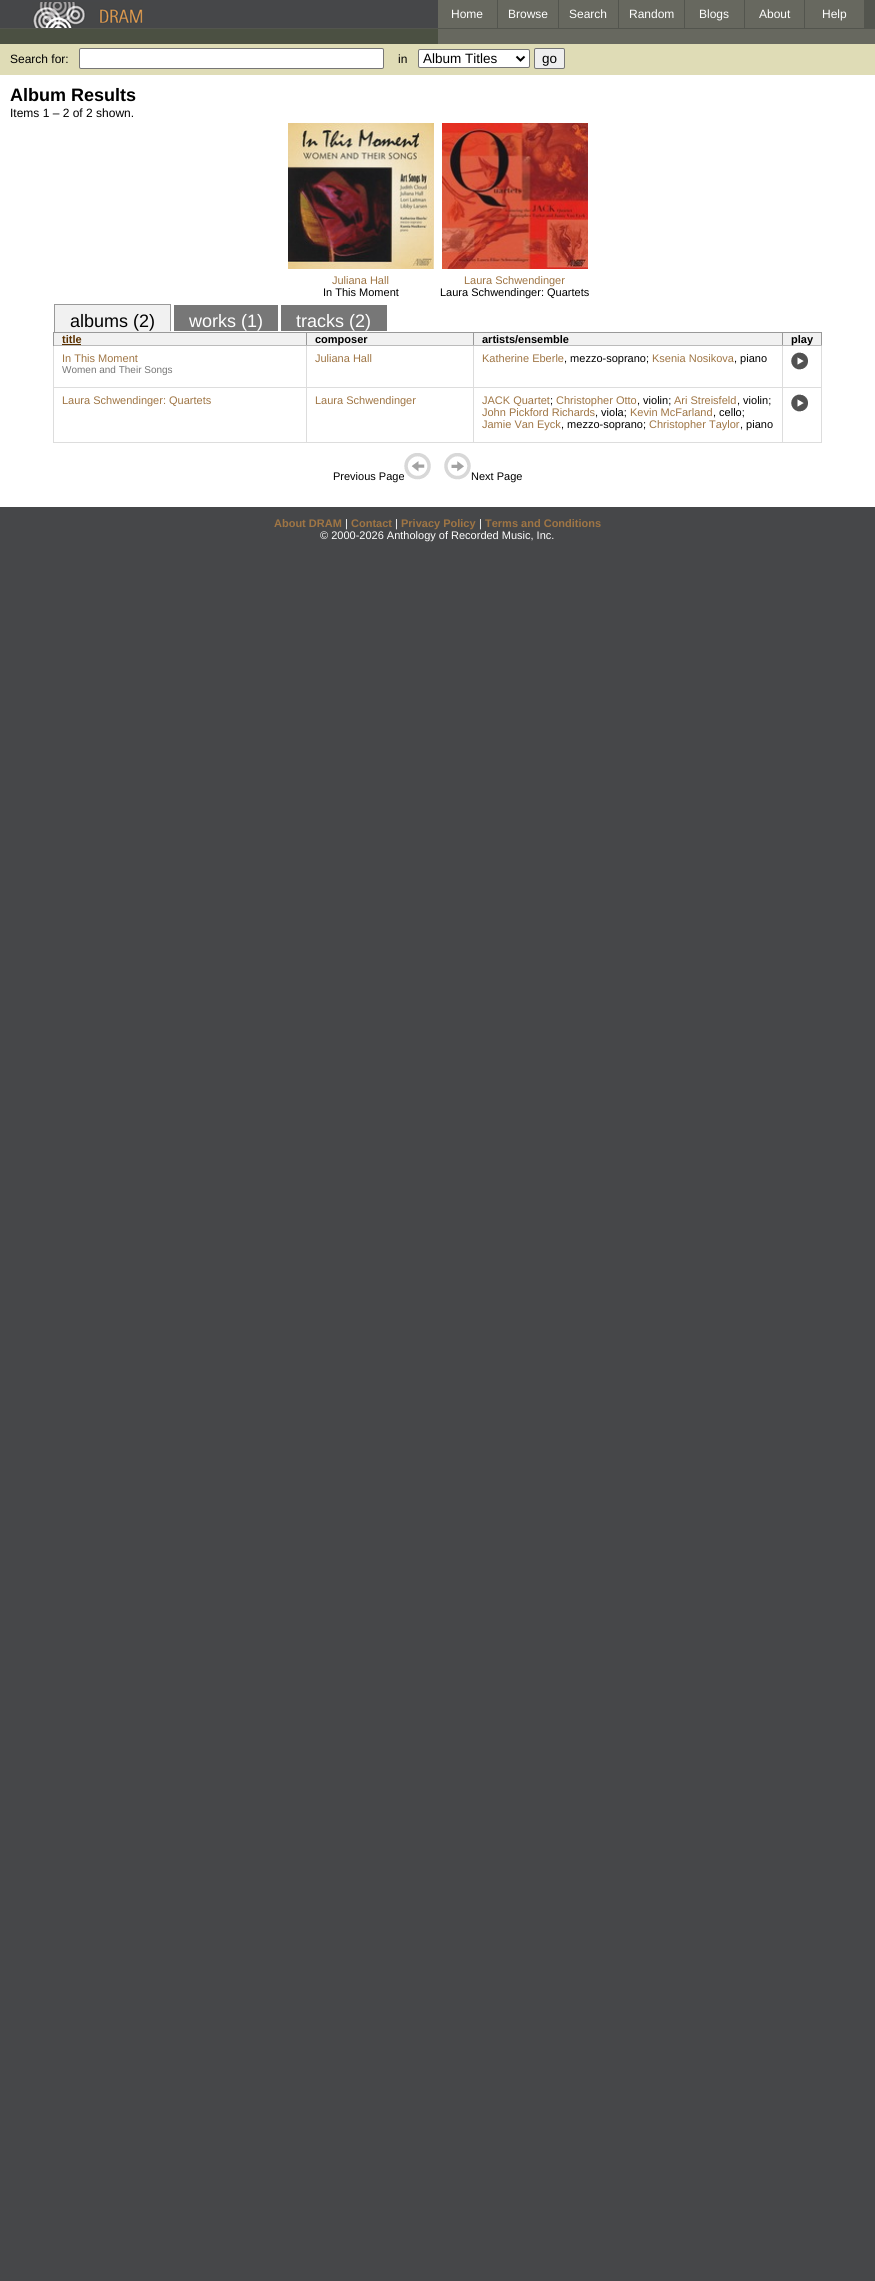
import math
import cairo

surface = cairo.ImageSurface(cairo.FORMAT_RGB24, 875, 2281)
ctx = cairo.Context(surface)
options = cairo.FontOptions()
options.set_hint_metrics(cairo.HINT_METRICS_OFF)
options.set_hint_style(cairo.HINT_STYLE_NONE)
ctx.set_font_options(options)
ctx.set_miter_limit(4)


def round_rect(x, y, w, h, r):
    ctx.new_sub_path()
    for i, (u, v) in enumerate([(x + w - r, y + h - r), (x + r, y + h - r), (x + r, y + r), (x + w - r, y + r)]):
        ctx.arc(u, v, r, i * math.pi / 2, (i + 1) * math.pi / 2)
    ctx.close_path()


def picture(path, x, y, w, h):
    ctx.save()
    ctx.set_source_surface(cairo.ImageSurface.create_from_png(path), x, y)
    ctx.rectangle(x, y, w, h)
    ctx.fill()
    ctx.restore()


ctx.set_source_rgb(0.275, 0.278, 0.286)
ctx.paint()
picture("img1.png", 32, 2, 111, 26)
ctx.set_source_rgb(0.325, 0.333, 0.306)
ctx.rectangle(497, 0, 378, 28)
ctx.fill()
ctx.set_source_rgb(0.404, 0.408, 0.373)
ctx.rectangle(438, 0, 59, 28)
ctx.fill()
ctx.select_font_face("Liberation Sans")
ctx.set_font_size(12)
ctx.set_source_rgb(1, 1, 1)
ctx.move_to(451, 18)
ctx.show_text("Home")
ctx.set_source_rgb(0.404, 0.408, 0.373)
ctx.rectangle(498, 0, 60, 28)
ctx.fill()
ctx.set_source_rgb(1, 1, 1)
ctx.move_to(508, 18)
ctx.show_text("Browse")
ctx.set_source_rgb(0.404, 0.408, 0.373)
ctx.rectangle(559, 0, 59, 28)
ctx.fill()
ctx.set_source_rgb(1, 1, 1)
ctx.move_to(569, 18)
ctx.show_text("Search")
ctx.set_source_rgb(0.404, 0.408, 0.373)
ctx.rectangle(619, 0, 65, 28)
ctx.fill()
ctx.set_source_rgb(1, 1, 1)
ctx.move_to(629, 18)
ctx.show_text("Random")
ctx.set_source_rgb(0.404, 0.408, 0.373)
ctx.rectangle(685, 0, 59, 28)
ctx.fill()
ctx.set_source_rgb(1, 1, 1)
ctx.move_to(699, 18)
ctx.show_text("Blogs")
ctx.set_source_rgb(0.404, 0.408, 0.373)
ctx.rectangle(745, 0, 59, 28)
ctx.fill()
ctx.set_source_rgb(1, 1, 1)
ctx.move_to(759, 18)
ctx.show_text("About")
ctx.set_source_rgb(0.404, 0.408, 0.373)
ctx.rectangle(805, 0, 59, 28)
ctx.fill()
ctx.set_source_rgb(1, 1, 1)
ctx.move_to(822, 18)
ctx.show_text("Help")
ctx.set_source_rgb(0.404, 0.408, 0.373)
ctx.rectangle(438, 29, 437, 15)
ctx.fill()
ctx.set_source_rgb(0.325, 0.333, 0.306)
ctx.rectangle(0, 28, 875, 1)
ctx.fill()
ctx.set_source_rgb(0.294, 0.314, 0.259)
ctx.rectangle(0, 29, 438, 15)
ctx.fill()
ctx.set_source_rgb(0.875, 0.863, 0.714)
ctx.rectangle(0, 44, 875, 31)
ctx.fill()
ctx.set_source_rgb(0, 0, 0)
ctx.move_to(10, 63)
ctx.show_text("Search for:")
ctx.set_source_rgb(1, 1, 1)
round_rect(79.5, 48.5, 304, 20, 1.5)
ctx.fill_preserve()
ctx.set_source_rgb(0.463, 0.463, 0.463)
ctx.set_line_width(1)
ctx.stroke()
ctx.set_source_rgb(0, 0, 0)
ctx.move_to(398, 63)
ctx.show_text("in")
ctx.set_source_rgb(1, 1, 1)
round_rect(418.5, 49.5, 111, 18, 1.5)
ctx.fill_preserve()
ctx.set_source_rgb(0.463, 0.463, 0.463)
ctx.stroke()
ctx.new_path()
ctx.move_to(516.5, 56.5)
ctx.line_to(520.5, 60.5)
ctx.line_to(524.5, 56.5)
ctx.set_source_rgb(0, 0, 0)
ctx.set_line_width(2)
ctx.stroke()
ctx.set_font_size(13.5)
ctx.move_to(423, 63)
ctx.show_text("Album Titles")
ctx.set_source_rgb(0.937, 0.937, 0.937)
round_rect(534.5, 48.5, 30, 20, 1.5)
ctx.fill_preserve()
ctx.set_source_rgb(0.463, 0.463, 0.463)
ctx.set_line_width(1)
ctx.stroke()
ctx.set_source_rgb(0, 0, 0)
ctx.move_to(542, 63)
ctx.show_text("go")
ctx.set_source_rgb(1, 1, 1)
ctx.rectangle(0, 75, 875, 432)
ctx.fill()
ctx.select_font_face("Liberation Sans", cairo.FONT_SLANT_NORMAL, cairo.FONT_WEIGHT_BOLD)
ctx.set_font_size(18)
ctx.set_source_rgb(0, 0, 0)
ctx.move_to(10, 101)
ctx.show_text("Album Results")
ctx.select_font_face("Liberation Sans")
ctx.set_font_size(12)
ctx.move_to(10, 117)
ctx.show_text("Items 1 – 2 of 2 shown.")
picture("img2.png", 288, 123, 146, 146)
ctx.set_font_size(11)
ctx.set_source_rgb(0.624, 0.459, 0.267)
ctx.move_to(332, 284)
ctx.show_text("Juliana Hall")
ctx.set_source_rgb(0, 0, 0)
ctx.move_to(323, 296)
ctx.show_text("In This Moment")
picture("img3.png", 442, 123, 146, 146)
ctx.set_source_rgb(0.624, 0.459, 0.267)
ctx.move_to(464, 284)
ctx.show_text("Laura Schwendinger")
ctx.set_source_rgb(0, 0, 0)
ctx.move_to(440, 296)
ctx.show_text("Laura Schwendinger: Quartets")
ctx.set_source_rgb(0.945, 0.945, 0.945)
ctx.rectangle(55, 305, 115, 26)
ctx.fill()
ctx.set_font_size(18)
ctx.set_source_rgb(0, 0, 0)
ctx.move_to(70, 327)
ctx.show_text("albums (2)")
ctx.set_source_rgb(0.6, 0.6, 0.6)
ctx.rectangle(54, 304, 117, 1)
ctx.fill()
ctx.rectangle(170, 304, 1, 28)
ctx.fill()
ctx.set_source_rgb(0.945, 0.945, 0.945)
ctx.rectangle(54, 331, 117, 1)
ctx.fill()
ctx.set_source_rgb(0.6, 0.6, 0.6)
ctx.rectangle(54, 304, 1, 28)
ctx.fill()
ctx.set_source_rgb(0.467, 0.467, 0.467)
ctx.rectangle(174, 305, 104, 26)
ctx.fill()
ctx.set_source_rgb(1, 1, 1)
ctx.move_to(189, 327)
ctx.show_text("works (1)")
ctx.set_source_rgb(0.467, 0.467, 0.467)
ctx.rectangle(281, 305, 106, 26)
ctx.fill()
ctx.set_source_rgb(1, 1, 1)
ctx.move_to(296, 327)
ctx.show_text("tracks (2)")
ctx.set_source_rgb(0.945, 0.945, 0.945)
ctx.rectangle(54, 333, 252, 12)
ctx.fill()
ctx.set_source_rgb(0.6, 0.6, 0.6)
ctx.rectangle(782, 332, 40, 1)
ctx.fill()
ctx.set_source_rgb(0.867, 0.867, 0.867)
ctx.rectangle(821, 345, 1, 98)
ctx.fill()
ctx.set_source_rgb(0.6, 0.6, 0.6)
ctx.rectangle(821, 332, 1, 14)
ctx.fill()
ctx.set_source_rgb(0.867, 0.867, 0.867)
ctx.rectangle(782, 442, 40, 1)
ctx.fill()
ctx.rectangle(782, 387, 1, 56)
ctx.fill()
ctx.rectangle(782, 387, 40, 1)
ctx.fill()
ctx.rectangle(782, 345, 1, 43)
ctx.fill()
ctx.set_source_rgb(0.733, 0.733, 0.733)
ctx.rectangle(782, 345, 40, 1)
ctx.fill()
ctx.set_source_rgb(0.6, 0.6, 0.6)
ctx.rectangle(782, 332, 1, 14)
ctx.fill()
ctx.rectangle(473, 332, 310, 1)
ctx.fill()
ctx.set_source_rgb(0.867, 0.867, 0.867)
ctx.rectangle(473, 442, 310, 1)
ctx.fill()
ctx.rectangle(473, 387, 1, 56)
ctx.fill()
ctx.rectangle(473, 387, 310, 1)
ctx.fill()
ctx.rectangle(473, 345, 1, 43)
ctx.fill()
ctx.set_source_rgb(0.733, 0.733, 0.733)
ctx.rectangle(473, 345, 310, 1)
ctx.fill()
ctx.set_source_rgb(0.6, 0.6, 0.6)
ctx.rectangle(473, 332, 1, 14)
ctx.fill()
ctx.rectangle(306, 332, 168, 1)
ctx.fill()
ctx.set_source_rgb(0.867, 0.867, 0.867)
ctx.rectangle(306, 442, 168, 1)
ctx.fill()
ctx.rectangle(306, 387, 1, 56)
ctx.fill()
ctx.rectangle(306, 387, 168, 1)
ctx.fill()
ctx.rectangle(306, 345, 1, 43)
ctx.fill()
ctx.set_source_rgb(0.733, 0.733, 0.733)
ctx.rectangle(306, 345, 168, 1)
ctx.fill()
ctx.set_source_rgb(0.6, 0.6, 0.6)
ctx.rectangle(306, 332, 1, 14)
ctx.fill()
ctx.rectangle(53, 332, 254, 1)
ctx.fill()
ctx.set_source_rgb(0.867, 0.867, 0.867)
ctx.rectangle(53, 442, 254, 1)
ctx.fill()
ctx.rectangle(53, 387, 1, 56)
ctx.fill()
ctx.rectangle(53, 387, 254, 1)
ctx.fill()
ctx.rectangle(53, 345, 1, 43)
ctx.fill()
ctx.set_source_rgb(0.733, 0.733, 0.733)
ctx.rectangle(53, 345, 254, 1)
ctx.fill()
ctx.set_source_rgb(0.6, 0.6, 0.6)
ctx.rectangle(53, 332, 1, 14)
ctx.fill()
ctx.select_font_face("Liberation Sans", cairo.FONT_SLANT_NORMAL, cairo.FONT_WEIGHT_BOLD)
ctx.set_font_size(11)
ctx.set_source_rgb(0.357, 0.192, 0)
ctx.move_to(62, 343)
ctx.show_text("title")
ctx.rectangle(62, 344, 19, 1)
ctx.fill()
ctx.set_source_rgb(0.945, 0.945, 0.945)
ctx.rectangle(307, 333, 166, 12)
ctx.fill()
ctx.set_source_rgb(0, 0, 0)
ctx.move_to(315, 343)
ctx.show_text("composer")
ctx.set_source_rgb(0.945, 0.945, 0.945)
ctx.rectangle(474, 333, 308, 12)
ctx.fill()
ctx.set_source_rgb(0, 0, 0)
ctx.move_to(482, 343)
ctx.show_text("artists/ensemble")
ctx.set_source_rgb(0.945, 0.945, 0.945)
ctx.rectangle(783, 333, 38, 12)
ctx.fill()
ctx.set_source_rgb(0, 0, 0)
ctx.move_to(791, 343)
ctx.show_text("play")
ctx.select_font_face("Liberation Sans")
ctx.set_source_rgb(0.624, 0.459, 0.267)
ctx.move_to(62, 362)
ctx.show_text("In This Moment")
ctx.set_font_size(10)
ctx.set_source_rgb(0.467, 0.467, 0.467)
ctx.move_to(62, 373)
ctx.show_text("Women and Their Songs")
ctx.set_font_size(11)
ctx.set_source_rgb(0.624, 0.459, 0.267)
ctx.move_to(315, 362)
ctx.show_text("Juliana Hall")
ctx.move_to(482, 362)
ctx.show_text("Katherine Eberle")
ctx.set_source_rgb(0, 0, 0)
ctx.move_to(564, 362)
ctx.show_text(", mezzo-soprano;")
ctx.set_source_rgb(0.624, 0.459, 0.267)
ctx.move_to(652, 362)
ctx.show_text("Ksenia Nosikova")
ctx.set_source_rgb(0, 0, 0)
ctx.move_to(734, 362)
ctx.show_text(", piano")
picture("img4.png", 791, 352, 17, 18)
ctx.set_source_rgb(0.624, 0.459, 0.267)
ctx.move_to(62, 404)
ctx.show_text("Laura Schwendinger: Quartets")
ctx.move_to(315, 404)
ctx.show_text("Laura Schwendinger")
ctx.move_to(482, 404)
ctx.show_text("JACK Quartet")
ctx.set_source_rgb(0, 0, 0)
ctx.move_to(550, 404)
ctx.show_text(";")
ctx.set_source_rgb(0.624, 0.459, 0.267)
ctx.move_to(556, 404)
ctx.show_text("Christopher Otto")
ctx.set_source_rgb(0, 0, 0)
ctx.move_to(637, 404)
ctx.show_text(", violin;")
ctx.set_source_rgb(0.624, 0.459, 0.267)
ctx.move_to(674, 404)
ctx.show_text("Ari Streisfeld")
ctx.set_source_rgb(0, 0, 0)
ctx.move_to(737, 404)
ctx.show_text(", violin;")
ctx.set_source_rgb(0.624, 0.459, 0.267)
ctx.move_to(482, 416)
ctx.show_text("John Pickford Richards")
ctx.set_source_rgb(0, 0, 0)
ctx.move_to(595, 416)
ctx.show_text(", viola;")
ctx.set_source_rgb(0.624, 0.459, 0.267)
ctx.move_to(630, 416)
ctx.show_text("Kevin McFarland")
ctx.set_source_rgb(0, 0, 0)
ctx.move_to(713, 416)
ctx.show_text(", cello;")
ctx.set_source_rgb(0.624, 0.459, 0.267)
ctx.move_to(482, 428)
ctx.show_text("Jamie Van Eyck")
ctx.set_source_rgb(0, 0, 0)
ctx.move_to(561, 428)
ctx.show_text(", mezzo-soprano;")
ctx.set_source_rgb(0.624, 0.459, 0.267)
ctx.move_to(649, 428)
ctx.show_text("Christopher Taylor")
ctx.set_source_rgb(0, 0, 0)
ctx.move_to(740, 428)
ctx.show_text(", piano")
picture("img4.png", 791, 394, 17, 18)
ctx.move_to(333, 480)
ctx.show_text("Previous Page")
picture("img5.png", 404, 453, 27, 27)
picture("img6.png", 444, 453, 27, 27)
ctx.move_to(471, 480)
ctx.show_text("Next Page")
ctx.select_font_face("Liberation Sans", cairo.FONT_SLANT_NORMAL, cairo.FONT_WEIGHT_BOLD)
ctx.set_source_rgb(0.624, 0.459, 0.267)
ctx.move_to(274, 527)
ctx.show_text("About DRAM")
ctx.select_font_face("Liberation Sans")
ctx.set_source_rgb(1, 1, 1)
ctx.move_to(345, 527)
ctx.show_text("|")
ctx.select_font_face("Liberation Sans", cairo.FONT_SLANT_NORMAL, cairo.FONT_WEIGHT_BOLD)
ctx.set_source_rgb(0.624, 0.459, 0.267)
ctx.move_to(351, 527)
ctx.show_text("Contact")
ctx.select_font_face("Liberation Sans")
ctx.set_source_rgb(1, 1, 1)
ctx.move_to(395, 527)
ctx.show_text("|")
ctx.select_font_face("Liberation Sans", cairo.FONT_SLANT_NORMAL, cairo.FONT_WEIGHT_BOLD)
ctx.set_source_rgb(0.624, 0.459, 0.267)
ctx.move_to(401, 527)
ctx.show_text("Privacy Policy")
ctx.select_font_face("Liberation Sans")
ctx.set_source_rgb(1, 1, 1)
ctx.move_to(479, 527)
ctx.show_text("|")
ctx.select_font_face("Liberation Sans", cairo.FONT_SLANT_NORMAL, cairo.FONT_WEIGHT_BOLD)
ctx.set_source_rgb(0.624, 0.459, 0.267)
ctx.move_to(485, 527)
ctx.show_text("Terms and Conditions")
ctx.select_font_face("Liberation Sans")
ctx.set_source_rgb(1, 1, 1)
ctx.move_to(320, 539)
ctx.show_text("© 2000-2026 Anthology of Recorded Music, Inc.")
surface.write_to_png("page.png")
